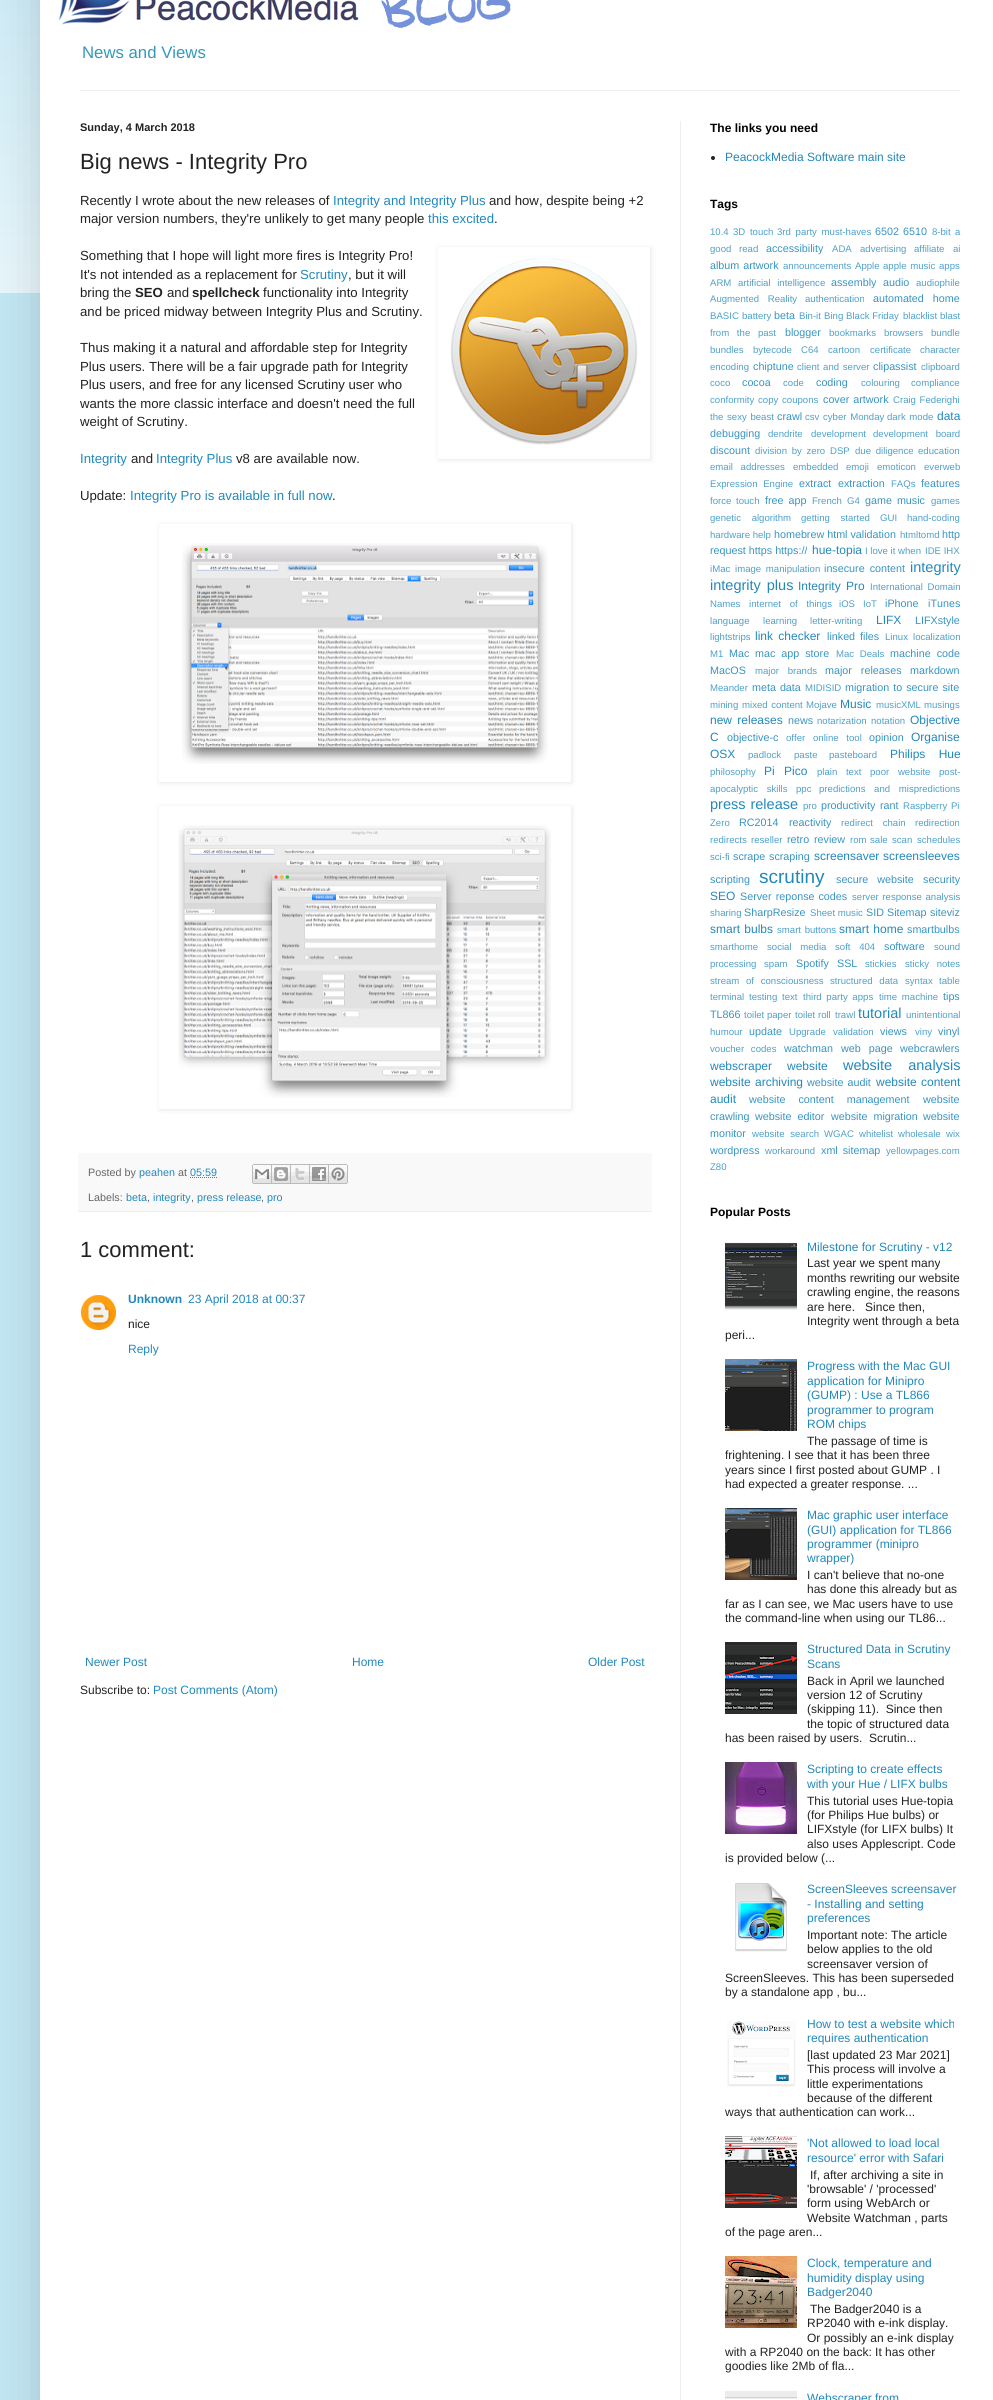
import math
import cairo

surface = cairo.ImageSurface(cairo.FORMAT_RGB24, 993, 2400)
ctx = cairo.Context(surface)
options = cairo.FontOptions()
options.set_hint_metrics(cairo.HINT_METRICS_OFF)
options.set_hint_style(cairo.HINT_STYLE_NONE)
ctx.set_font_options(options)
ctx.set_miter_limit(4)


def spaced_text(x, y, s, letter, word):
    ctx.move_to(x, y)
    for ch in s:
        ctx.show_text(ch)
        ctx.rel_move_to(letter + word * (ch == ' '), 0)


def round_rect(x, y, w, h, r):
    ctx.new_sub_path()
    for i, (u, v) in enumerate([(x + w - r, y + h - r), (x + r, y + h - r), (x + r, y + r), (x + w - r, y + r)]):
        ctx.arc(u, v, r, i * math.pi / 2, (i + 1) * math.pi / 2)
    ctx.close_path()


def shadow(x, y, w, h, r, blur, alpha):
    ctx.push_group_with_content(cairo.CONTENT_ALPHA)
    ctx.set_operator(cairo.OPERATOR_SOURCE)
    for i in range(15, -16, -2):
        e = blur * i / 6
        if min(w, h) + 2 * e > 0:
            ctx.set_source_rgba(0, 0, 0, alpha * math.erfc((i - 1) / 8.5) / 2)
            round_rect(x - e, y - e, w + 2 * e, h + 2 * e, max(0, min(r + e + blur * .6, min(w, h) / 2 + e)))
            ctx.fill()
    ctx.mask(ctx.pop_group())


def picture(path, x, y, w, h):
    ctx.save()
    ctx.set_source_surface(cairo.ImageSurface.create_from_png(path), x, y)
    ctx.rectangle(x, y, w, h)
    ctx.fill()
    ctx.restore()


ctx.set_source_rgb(0.757, 0.898, 0.949)
ctx.paint()
picture("img1.png", 0, 0, 40, 293)
ctx.set_source_rgb(0, 0, 0)
shadow(40, -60, 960, 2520, 0, 20, 0.15)
ctx.set_source_rgb(1, 1, 1)
ctx.rectangle(40, 0, 953, 2400)
ctx.fill()
picture("img2.png", 58, 0, 453, 28)
ctx.select_font_face("Liberation Sans")
ctx.set_font_size(16.75)
ctx.set_source_rgb(0.2, 0.6, 0.733)
ctx.move_to(82, 58)
ctx.show_text("News and Views")
ctx.set_source_rgb(0.933, 0.933, 0.933)
ctx.rectangle(80, 90, 880, 1)
ctx.fill()
ctx.rectangle(680, 121, 1, 2279)
ctx.fill()
ctx.select_font_face("Liberation Sans", cairo.FONT_SLANT_NORMAL, cairo.FONT_WEIGHT_BOLD)
ctx.set_font_size(11)
ctx.set_source_rgb(0.133, 0.133, 0.133)
ctx.move_to(80, 131)
ctx.show_text("Sunday, 4 March 2018")
ctx.select_font_face("Liberation Sans")
ctx.set_font_size(22)
ctx.move_to(80, 169)
ctx.show_text("Big news - Integrity Pro")
ctx.set_font_size(13.2)
ctx.move_to(80, 205)
ctx.show_text("Recently I wrote about the new releases of")
ctx.set_source_rgb(0.133, 0.533, 0.733)
ctx.move_to(333, 205)
ctx.show_text("Integrity and Integrity Plus")
ctx.set_source_rgb(0.133, 0.133, 0.133)
ctx.move_to(489, 205)
ctx.show_text("and how, despite being +2")
ctx.move_to(80, 223)
ctx.show_text("major version numbers, they're unlikely to get many people")
ctx.set_source_rgb(0.133, 0.533, 0.733)
ctx.move_to(428, 223)
ctx.show_text("this excited")
ctx.set_source_rgb(0.133, 0.133, 0.133)
ctx.move_to(494, 223)
ctx.show_text(".")
ctx.move_to(80, 260)
ctx.show_text("Something that I hope will light more fires is Integrity Pro!")
ctx.save()
ctx.set_fill_rule(cairo.FILL_RULE_EVEN_ODD)
ctx.new_path()
ctx.move_to(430, 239)
ctx.line_to(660, 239)
ctx.line_to(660, 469)
ctx.line_to(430, 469)
ctx.close_path()
ctx.move_to(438, 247)
ctx.line_to(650, 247)
ctx.line_to(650, 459)
ctx.line_to(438, 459)
ctx.close_path()
ctx.clip()
ctx.set_source_rgb(0, 0, 0)
shadow(439, 248, 212, 212, 0, 2.5, 0.1)
ctx.restore()
picture("img3.png", 450, 258, 188, 187)
ctx.move_to(80, 279)
ctx.show_text("It's not intended as a replacement for")
ctx.set_source_rgb(0.133, 0.533, 0.733)
ctx.move_to(300, 279)
ctx.show_text("Scrutiny")
ctx.set_source_rgb(0.133, 0.133, 0.133)
ctx.move_to(348, 279)
ctx.show_text(", but it will")
ctx.move_to(80, 297)
ctx.show_text("bring the")
ctx.select_font_face("Liberation Sans", cairo.FONT_SLANT_NORMAL, cairo.FONT_WEIGHT_BOLD)
ctx.move_to(135, 297)
ctx.show_text("SEO")
ctx.select_font_face("Liberation Sans")
ctx.move_to(167, 297)
ctx.show_text("and")
ctx.select_font_face("Liberation Sans", cairo.FONT_SLANT_NORMAL, cairo.FONT_WEIGHT_BOLD)
ctx.move_to(192, 297)
ctx.show_text("spellcheck")
ctx.select_font_face("Liberation Sans")
ctx.move_to(263, 297)
ctx.show_text("functionality into Integrity")
ctx.move_to(80, 316)
ctx.show_text("and be priced midway between Integrity Plus and Scrutiny.")
ctx.move_to(80, 352)
ctx.show_text("Thus making it a natural and affordable step for Integrity")
ctx.move_to(80, 371)
ctx.show_text("Plus users. There will be a fair upgrade path for Integrity")
ctx.move_to(80, 389)
ctx.show_text("Plus users, and free for any licensed Scrutiny user who")
ctx.move_to(80, 408)
ctx.show_text("wants the more classic interface and doesn't need the full")
ctx.move_to(80, 426)
ctx.show_text("weight of Scrutiny.")
ctx.set_source_rgb(0.133, 0.533, 0.733)
ctx.move_to(80, 463)
ctx.show_text("Integrity")
ctx.set_source_rgb(0.133, 0.133, 0.133)
ctx.move_to(131, 463)
ctx.show_text("and")
ctx.set_source_rgb(0.133, 0.533, 0.733)
ctx.move_to(156, 463)
ctx.show_text("Integrity Plus")
ctx.set_source_rgb(0.133, 0.133, 0.133)
ctx.move_to(236, 463)
ctx.show_text("v8 are available now.")
ctx.move_to(80, 500)
ctx.show_text("Update:")
ctx.set_source_rgb(0.133, 0.533, 0.733)
ctx.move_to(130, 500)
ctx.show_text("Integrity Pro is available in full now")
ctx.set_source_rgb(0.133, 0.133, 0.133)
ctx.move_to(332, 500)
ctx.show_text(".")
ctx.save()
ctx.set_fill_rule(cairo.FILL_RULE_EVEN_ODD)
ctx.new_path()
ctx.move_to(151, 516)
ctx.line_to(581, 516)
ctx.line_to(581, 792)
ctx.line_to(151, 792)
ctx.close_path()
ctx.move_to(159, 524)
ctx.line_to(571, 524)
ctx.line_to(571, 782)
ctx.line_to(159, 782)
ctx.close_path()
ctx.clip()
ctx.set_source_rgb(0, 0, 0)
shadow(160, 525, 412, 258, 0, 2.5, 0.1)
ctx.restore()
picture("img4.png", 182, 543, 366, 221)
ctx.save()
ctx.set_fill_rule(cairo.FILL_RULE_EVEN_ODD)
ctx.new_path()
ctx.move_to(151, 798)
ctx.line_to(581, 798)
ctx.line_to(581, 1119)
ctx.line_to(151, 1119)
ctx.close_path()
ctx.move_to(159, 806)
ctx.line_to(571, 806)
ctx.line_to(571, 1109)
ctx.line_to(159, 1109)
ctx.close_path()
ctx.clip()
ctx.set_source_rgb(0, 0, 0)
shadow(160, 807, 412, 303, 0, 2.5, 0.1)
ctx.restore()
picture("img5.png", 178, 825, 373, 273)
ctx.set_source_rgb(0.976, 0.976, 0.976)
ctx.rectangle(78, 1153, 574, 58)
ctx.fill()
ctx.set_source_rgb(0.933, 0.933, 0.933)
ctx.rectangle(78, 1211, 574, 1)
ctx.fill()
ctx.set_font_size(10.75)
ctx.set_source_rgb(0.4, 0.4, 0.4)
ctx.move_to(88, 1176)
ctx.show_text("Posted by")
ctx.set_source_rgb(0.133, 0.533, 0.733)
ctx.move_to(139, 1176)
ctx.show_text("peahen")
ctx.set_source_rgb(0.4, 0.4, 0.4)
ctx.move_to(178, 1176)
ctx.show_text("at")
ctx.set_source_rgb(0.133, 0.533, 0.733)
ctx.move_to(190, 1176)
ctx.show_text("05:59")
ctx.new_path()
ctx.move_to(190, 1177.5)
ctx.line_to(217, 1177.5)
ctx.set_line_width(1)
ctx.set_dash([1, 1])
ctx.stroke()
picture("img6.png", 252, 1164, 20, 20)
picture("img7.png", 272, 1164, 19, 20)
picture("img8.png", 291, 1164, 19, 20)
picture("img9.png", 310, 1164, 19, 20)
picture("img10.png", 329, 1164, 19, 20)
ctx.set_source_rgb(0.4, 0.4, 0.4)
ctx.move_to(88, 1201)
ctx.show_text("Labels:")
ctx.set_source_rgb(0.133, 0.533, 0.733)
ctx.move_to(126, 1201)
ctx.show_text("beta")
ctx.set_source_rgb(0.4, 0.4, 0.4)
ctx.move_to(147, 1201)
ctx.show_text(",")
ctx.set_source_rgb(0.133, 0.533, 0.733)
ctx.move_to(153, 1201)
ctx.show_text("integrity")
ctx.set_source_rgb(0.4, 0.4, 0.4)
ctx.move_to(191, 1201)
ctx.show_text(",")
ctx.set_source_rgb(0.133, 0.533, 0.733)
ctx.move_to(197, 1201)
ctx.show_text("press release")
ctx.set_source_rgb(0.4, 0.4, 0.4)
ctx.move_to(261, 1201)
ctx.show_text(",")
ctx.set_source_rgb(0.133, 0.533, 0.733)
ctx.move_to(267, 1201)
ctx.show_text("pro")
ctx.set_font_size(22)
ctx.set_source_rgb(0.133, 0.133, 0.133)
ctx.move_to(80, 1257)
ctx.show_text("1 comment:")
picture("img11.png", 81, 1295, 35, 35)
ctx.select_font_face("Liberation Sans", cairo.FONT_SLANT_NORMAL, cairo.FONT_WEIGHT_BOLD)
ctx.set_font_size(12)
ctx.set_source_rgb(0.133, 0.533, 0.733)
ctx.move_to(128, 1303)
ctx.show_text("Unknown")
ctx.select_font_face("Liberation Sans")
ctx.move_to(188, 1303)
ctx.show_text("23 April 2018 at 00:37")
ctx.set_source_rgb(0.133, 0.133, 0.133)
ctx.move_to(128, 1328)
ctx.show_text("nice")
ctx.set_source_rgb(0.133, 0.533, 0.733)
ctx.move_to(128, 1353)
ctx.show_text("Reply")
ctx.move_to(85, 1666)
ctx.show_text("Newer Post")
ctx.move_to(352, 1666)
ctx.show_text("Home")
ctx.move_to(588, 1666)
ctx.show_text("Older Post")
ctx.set_source_rgb(0.133, 0.133, 0.133)
ctx.move_to(80, 1694)
ctx.show_text("Subscribe to:")
ctx.set_source_rgb(0.133, 0.533, 0.733)
ctx.move_to(153, 1694)
ctx.show_text("Post Comments (Atom)")
ctx.select_font_face("Liberation Sans", cairo.FONT_SLANT_NORMAL, cairo.FONT_WEIGHT_BOLD)
ctx.set_source_rgb(0, 0, 0)
ctx.move_to(710, 132)
ctx.show_text("The links you need")
ctx.set_source_rgb(0.133, 0.133, 0.133)
ctx.new_path()
ctx.arc(713, 158, 2, 0, 2 * math.pi)
ctx.fill()
ctx.select_font_face("Liberation Sans")
ctx.set_source_rgb(0.133, 0.533, 0.733)
ctx.move_to(725, 161)
ctx.show_text("PeacockMedia Software main site")
ctx.select_font_face("Liberation Sans", cairo.FONT_SLANT_NORMAL, cairo.FONT_WEIGHT_BOLD)
ctx.set_source_rgb(0, 0, 0)
ctx.move_to(710, 208)
ctx.show_text("Tags")
ctx.select_font_face("Liberation Sans")
ctx.set_font_size(9.6)
ctx.set_source_rgb(0.306, 0.627, 0.788)
ctx.move_to(710, 235)
ctx.show_text("10.4")
spaced_text(733, 235, "3D touch", 0, 2)
spaced_text(777, 235, "3rd party must-haves", 0, 2)
ctx.set_font_size(10.75)
ctx.set_source_rgb(0.22, 0.58, 0.761)
ctx.move_to(875, 235)
ctx.show_text("6502")
ctx.move_to(903, 235)
ctx.show_text("6510")
ctx.set_font_size(9.6)
ctx.set_source_rgb(0.306, 0.627, 0.788)
ctx.move_to(932, 235)
ctx.show_text("8-bit")
ctx.move_to(955, 235)
ctx.show_text("a")
spaced_text(710, 252, "good read", 0, 5)
ctx.set_font_size(10.75)
ctx.set_source_rgb(0.22, 0.58, 0.761)
ctx.move_to(766, 252)
ctx.show_text("accessibility")
ctx.set_font_size(9.6)
ctx.set_source_rgb(0.306, 0.627, 0.788)
ctx.move_to(832, 252)
ctx.show_text("ADA")
ctx.move_to(860, 252)
ctx.show_text("advertising")
ctx.move_to(914, 252)
ctx.show_text("affiliate")
ctx.move_to(953, 252)
ctx.show_text("ai")
ctx.set_font_size(10.75)
ctx.set_source_rgb(0.22, 0.58, 0.761)
spaced_text(710, 269, "album artwork", 0, 1)
ctx.set_font_size(9.6)
ctx.set_source_rgb(0.306, 0.627, 0.788)
ctx.move_to(783, 269)
ctx.show_text("announcements")
ctx.move_to(855, 269)
ctx.show_text("Apple")
spaced_text(883, 269, "apple music", 0, 1)
ctx.move_to(939, 269)
ctx.show_text("apps")
ctx.move_to(710, 286)
ctx.show_text("ARM")
spaced_text(738, 286, "artificial intelligence", 0, 4)
ctx.set_font_size(10.75)
ctx.set_source_rgb(0.22, 0.58, 0.761)
ctx.move_to(831, 286)
ctx.show_text("assembly")
ctx.move_to(883, 286)
ctx.show_text("audio")
ctx.set_font_size(9.6)
ctx.set_source_rgb(0.306, 0.627, 0.788)
ctx.move_to(916, 286)
ctx.show_text("audiophile")
spaced_text(710, 302, "Augmented Reality", 0, 6)
ctx.move_to(805, 302)
ctx.show_text("authentication")
ctx.set_font_size(10.75)
ctx.set_source_rgb(0.22, 0.58, 0.761)
spaced_text(873, 302, "automated home", 0, 6)
ctx.set_font_size(9.6)
ctx.set_source_rgb(0.306, 0.627, 0.788)
ctx.move_to(710, 319)
ctx.show_text("BASIC")
ctx.move_to(742, 319)
ctx.show_text("battery")
ctx.set_font_size(10.75)
ctx.set_source_rgb(0.22, 0.58, 0.761)
ctx.move_to(774, 319)
ctx.show_text("beta")
ctx.set_font_size(9.6)
ctx.set_source_rgb(0.306, 0.627, 0.788)
ctx.move_to(799, 319)
ctx.show_text("Bin-it")
ctx.move_to(824, 319)
ctx.show_text("Bing")
ctx.move_to(846, 319)
ctx.show_text("Black Friday")
ctx.move_to(903, 319)
ctx.show_text("blacklist")
ctx.move_to(940, 319)
ctx.show_text("blast")
spaced_text(710, 336, "from the past", 0, 5)
ctx.set_font_size(10.75)
ctx.set_source_rgb(0.22, 0.58, 0.761)
ctx.move_to(785, 336)
ctx.show_text("blogger")
ctx.set_font_size(9.6)
ctx.set_source_rgb(0.306, 0.627, 0.788)
ctx.move_to(829, 336)
ctx.show_text("bookmarks")
ctx.move_to(884, 336)
ctx.show_text("browsers")
ctx.move_to(931, 336)
ctx.show_text("bundle")
ctx.move_to(710, 353)
ctx.show_text("bundles")
ctx.move_to(753, 353)
ctx.show_text("bytecode")
ctx.move_to(801, 353)
ctx.show_text("C64")
ctx.move_to(828, 353)
ctx.show_text("cartoon")
ctx.move_to(870, 353)
ctx.show_text("certificate")
ctx.move_to(920, 353)
ctx.show_text("character")
ctx.move_to(710, 370)
ctx.show_text("encoding")
ctx.set_font_size(10.75)
ctx.set_source_rgb(0.22, 0.58, 0.761)
ctx.move_to(753, 370)
ctx.show_text("chiptune")
ctx.set_font_size(9.6)
ctx.set_source_rgb(0.306, 0.627, 0.788)
spaced_text(797, 370, "client and server", 0, 1)
ctx.set_font_size(10.75)
ctx.set_source_rgb(0.22, 0.58, 0.761)
ctx.move_to(873, 370)
ctx.show_text("clipassist")
ctx.set_font_size(9.6)
ctx.set_source_rgb(0.306, 0.627, 0.788)
ctx.move_to(921, 370)
ctx.show_text("clipboard")
ctx.move_to(710, 386)
ctx.show_text("coco")
ctx.set_font_size(10.75)
ctx.set_source_rgb(0.22, 0.58, 0.761)
ctx.move_to(742, 386)
ctx.show_text("cocoa")
ctx.set_font_size(9.6)
ctx.set_source_rgb(0.306, 0.627, 0.788)
ctx.move_to(783, 386)
ctx.show_text("code")
ctx.set_font_size(10.75)
ctx.set_source_rgb(0.22, 0.58, 0.761)
ctx.move_to(816, 386)
ctx.show_text("coding")
ctx.set_font_size(9.6)
ctx.set_source_rgb(0.306, 0.627, 0.788)
ctx.move_to(861, 386)
ctx.show_text("colouring")
ctx.move_to(911, 386)
ctx.show_text("compliance")
ctx.move_to(710, 403)
ctx.show_text("conformity")
ctx.move_to(758, 403)
ctx.show_text("copy")
ctx.move_to(782, 403)
ctx.show_text("coupons")
ctx.set_font_size(10.75)
ctx.set_source_rgb(0.22, 0.58, 0.761)
spaced_text(823, 403, "cover artwork", 0, 1)
ctx.set_font_size(9.6)
ctx.set_source_rgb(0.306, 0.627, 0.788)
spaced_text(893, 403, "Craig Federighi", 0, 1)
spaced_text(710, 420, "the sexy beast", 0, 1)
ctx.set_font_size(10.75)
ctx.set_source_rgb(0.22, 0.58, 0.761)
ctx.move_to(777, 420)
ctx.show_text("crawl")
ctx.set_font_size(9.6)
ctx.set_source_rgb(0.306, 0.627, 0.788)
ctx.move_to(805, 420)
ctx.show_text("csv")
spaced_text(823, 420, "cyber Monday", 0, 1)
spaced_text(887, 420, "dark mode", 0, 1)
ctx.set_font_size(12)
ctx.set_source_rgb(0.133, 0.533, 0.733)
ctx.move_to(937, 420)
ctx.show_text("data")
ctx.set_font_size(10.75)
ctx.set_source_rgb(0.22, 0.58, 0.761)
ctx.move_to(710, 437)
ctx.show_text("debugging")
ctx.set_font_size(9.6)
ctx.set_source_rgb(0.306, 0.627, 0.788)
ctx.move_to(768, 437)
ctx.show_text("dendrite")
ctx.move_to(811, 437)
ctx.show_text("development")
spaced_text(873, 437, "development board", 0, 5)
ctx.set_font_size(10.75)
ctx.set_source_rgb(0.22, 0.58, 0.761)
ctx.move_to(710, 454)
ctx.show_text("discount")
ctx.set_font_size(9.6)
ctx.set_source_rgb(0.306, 0.627, 0.788)
spaced_text(755, 454, "division by zero", 0, 2)
ctx.move_to(830, 454)
ctx.show_text("DSP")
spaced_text(855, 454, "due diligence", 0, 2)
ctx.move_to(918, 454)
ctx.show_text("education")
spaced_text(710, 470, "email addresses", 0, 5)
ctx.move_to(793, 470)
ctx.show_text("embedded")
ctx.move_to(846, 470)
ctx.show_text("emoji")
ctx.move_to(877, 470)
ctx.show_text("emoticon")
ctx.move_to(924, 470)
ctx.show_text("everweb")
spaced_text(710, 487, "Expression Engine", 0, 3)
ctx.set_font_size(10.75)
ctx.set_source_rgb(0.22, 0.58, 0.761)
ctx.move_to(799, 487)
ctx.show_text("extract")
ctx.move_to(838, 487)
ctx.show_text("extraction")
ctx.set_font_size(9.6)
ctx.set_source_rgb(0.306, 0.627, 0.788)
ctx.move_to(891, 487)
ctx.show_text("FAQs")
ctx.set_font_size(10.75)
ctx.set_source_rgb(0.22, 0.58, 0.761)
ctx.move_to(921, 487)
ctx.show_text("features")
ctx.set_font_size(9.6)
ctx.set_source_rgb(0.306, 0.627, 0.788)
spaced_text(710, 504, "force touch", 0, 2)
ctx.set_font_size(10.75)
ctx.set_source_rgb(0.22, 0.58, 0.761)
spaced_text(765, 504, "free app", 0, 2)
ctx.set_font_size(9.6)
ctx.set_source_rgb(0.306, 0.627, 0.788)
ctx.move_to(812, 504)
ctx.show_text("French")
ctx.move_to(847, 504)
ctx.show_text("G4")
ctx.set_font_size(10.75)
ctx.set_source_rgb(0.22, 0.58, 0.761)
spaced_text(865, 504, "game music", 0, 2)
ctx.set_font_size(9.6)
ctx.set_source_rgb(0.306, 0.627, 0.788)
ctx.move_to(931, 504)
ctx.show_text("games")
spaced_text(710, 521, "genetic algorithm", 0, 8)
spaced_text(801, 521, "getting started", 0, 8)
ctx.move_to(880, 521)
ctx.show_text("GUI")
ctx.move_to(907, 521)
ctx.show_text("hand-coding")
ctx.move_to(710, 538)
ctx.show_text("hardware help")
ctx.set_font_size(10.75)
ctx.set_source_rgb(0.22, 0.58, 0.761)
ctx.move_to(774, 538)
ctx.show_text("homebrew html validation")
ctx.set_font_size(9.6)
ctx.set_source_rgb(0.306, 0.627, 0.788)
ctx.move_to(900, 538)
ctx.show_text("htmltomd")
ctx.set_font_size(10.75)
ctx.set_source_rgb(0.22, 0.58, 0.761)
ctx.move_to(942, 538)
ctx.show_text("http")
ctx.move_to(710, 554)
ctx.show_text("request https https://")
ctx.set_font_size(12)
ctx.set_source_rgb(0.133, 0.533, 0.733)
ctx.move_to(812, 554)
ctx.show_text("hue-topia")
ctx.set_font_size(9.6)
ctx.set_source_rgb(0.306, 0.627, 0.788)
ctx.move_to(865, 554)
ctx.show_text("I love it when")
ctx.move_to(925, 554)
ctx.show_text("IDE IHX")
ctx.move_to(710, 572)
ctx.show_text("iMac")
spaced_text(735, 572, "image manipulation", 0, 2)
ctx.set_font_size(10.75)
ctx.set_source_rgb(0.22, 0.58, 0.761)
spaced_text(824, 572, "insecure content", 0, 2)
ctx.set_font_size(14.5)
ctx.set_source_rgb(0.133, 0.533, 0.733)
ctx.move_to(910, 572)
ctx.show_text("integrity")
spaced_text(710, 590, "integrity plus", 0, 2)
ctx.set_font_size(12)
spaced_text(798, 590, "Integrity Pro", 0, 2)
ctx.set_font_size(9.6)
ctx.set_source_rgb(0.306, 0.627, 0.788)
spaced_text(870, 590, "International Domain", 0, 2)
ctx.move_to(710, 607)
ctx.show_text("Names")
spaced_text(749, 607, "internet of things", 0, 6)
ctx.move_to(839, 607)
ctx.show_text("iOS")
ctx.move_to(863, 607)
ctx.show_text("IoT")
ctx.set_font_size(10.75)
ctx.set_source_rgb(0.22, 0.58, 0.761)
ctx.move_to(885, 607)
ctx.show_text("iPhone")
ctx.move_to(928, 607)
ctx.show_text("iTunes")
ctx.set_font_size(9.6)
ctx.set_source_rgb(0.306, 0.627, 0.788)
ctx.move_to(710, 624)
ctx.show_text("language")
ctx.move_to(763, 624)
ctx.show_text("learning")
ctx.move_to(810, 624)
ctx.show_text("letter-writing")
ctx.set_font_size(12)
ctx.set_source_rgb(0.133, 0.533, 0.733)
ctx.move_to(876, 624)
ctx.show_text("LIFX")
ctx.set_font_size(10.75)
ctx.set_source_rgb(0.22, 0.58, 0.761)
ctx.move_to(915, 624)
ctx.show_text("LIFXstyle")
ctx.set_font_size(9.6)
ctx.set_source_rgb(0.306, 0.627, 0.788)
ctx.move_to(710, 640)
ctx.show_text("lightstrips")
ctx.set_font_size(12)
ctx.set_source_rgb(0.133, 0.533, 0.733)
spaced_text(755, 640, "link checker", 0, 2)
ctx.set_font_size(10.75)
ctx.set_source_rgb(0.22, 0.58, 0.761)
spaced_text(827, 640, "linked files", 0, 2)
ctx.set_font_size(9.6)
ctx.set_source_rgb(0.306, 0.627, 0.788)
ctx.move_to(885, 640)
ctx.show_text("Linux")
ctx.move_to(913, 640)
ctx.show_text("localization")
ctx.move_to(710, 657)
ctx.show_text("M1")
ctx.set_font_size(10.75)
ctx.set_source_rgb(0.22, 0.58, 0.761)
ctx.move_to(729, 657)
ctx.show_text("Mac")
spaced_text(755, 657, "mac app store", 0, 3)
ctx.set_font_size(9.6)
ctx.set_source_rgb(0.306, 0.627, 0.788)
spaced_text(836, 657, "Mac Deals", 0, 3)
ctx.set_font_size(10.75)
ctx.set_source_rgb(0.22, 0.58, 0.761)
spaced_text(890, 657, "machine code", 0, 3)
ctx.move_to(710, 674)
ctx.show_text("MacOS")
ctx.set_font_size(9.6)
ctx.set_source_rgb(0.306, 0.627, 0.788)
spaced_text(755, 674, "major brands", 0, 6)
ctx.set_font_size(10.75)
ctx.set_source_rgb(0.22, 0.58, 0.761)
spaced_text(825, 674, "major releases", 0, 6)
ctx.move_to(910, 674)
ctx.show_text("markdown")
ctx.set_font_size(9.6)
ctx.set_source_rgb(0.306, 0.627, 0.788)
ctx.move_to(710, 691)
ctx.show_text("Meander")
ctx.set_font_size(10.75)
ctx.set_source_rgb(0.22, 0.58, 0.761)
spaced_text(752, 691, "meta data", 0, 1)
ctx.set_font_size(9.6)
ctx.set_source_rgb(0.306, 0.627, 0.788)
ctx.move_to(805, 691)
ctx.show_text("MIDISID")
ctx.set_font_size(10.75)
ctx.set_source_rgb(0.22, 0.58, 0.761)
spaced_text(845, 691, "migration to secure site", 0, 1)
ctx.set_font_size(9.6)
ctx.set_source_rgb(0.306, 0.627, 0.788)
ctx.move_to(710, 708)
ctx.show_text("mining")
spaced_text(742, 708, "mixed content", 0, 1)
ctx.move_to(806, 708)
ctx.show_text("Mojave")
ctx.set_font_size(12)
ctx.set_source_rgb(0.133, 0.533, 0.733)
ctx.move_to(840, 708)
ctx.show_text("Music")
ctx.set_font_size(9.6)
ctx.set_source_rgb(0.306, 0.627, 0.788)
ctx.move_to(876, 708)
ctx.show_text("musicXML")
ctx.move_to(924, 708)
ctx.show_text("musings")
ctx.set_font_size(12)
ctx.set_source_rgb(0.133, 0.533, 0.733)
spaced_text(710, 724, "new releases", 0, 2)
ctx.set_font_size(10.75)
ctx.set_source_rgb(0.22, 0.58, 0.761)
ctx.move_to(788, 724)
ctx.show_text("news")
ctx.set_font_size(9.6)
ctx.set_source_rgb(0.306, 0.627, 0.788)
ctx.move_to(817, 724)
ctx.show_text("notarization")
ctx.move_to(871, 724)
ctx.show_text("notation")
ctx.set_font_size(12)
ctx.set_source_rgb(0.133, 0.533, 0.733)
ctx.move_to(910, 724)
ctx.show_text("Objective")
ctx.move_to(710, 741)
ctx.show_text("C")
ctx.set_font_size(10.75)
ctx.set_source_rgb(0.22, 0.58, 0.761)
ctx.move_to(727, 741)
ctx.show_text("objective-c")
ctx.set_font_size(9.6)
ctx.set_source_rgb(0.306, 0.627, 0.788)
ctx.move_to(786, 741)
ctx.show_text("offer")
spaced_text(813, 741, "online tool", 0, 5)
ctx.set_font_size(10.75)
ctx.set_source_rgb(0.22, 0.58, 0.761)
ctx.move_to(869, 741)
ctx.show_text("opinion")
ctx.set_font_size(12)
ctx.set_source_rgb(0.133, 0.533, 0.733)
ctx.move_to(911, 741)
ctx.show_text("Organise")
ctx.move_to(710, 758)
ctx.show_text("OSX")
ctx.set_font_size(9.6)
ctx.set_source_rgb(0.306, 0.627, 0.788)
ctx.move_to(748, 758)
ctx.show_text("padlock")
ctx.move_to(794, 758)
ctx.show_text("paste")
ctx.move_to(829, 758)
ctx.show_text("pasteboard")
ctx.set_font_size(12)
ctx.set_source_rgb(0.133, 0.533, 0.733)
spaced_text(890, 758, "Philips Hue", 0, 10)
ctx.set_font_size(9.6)
ctx.set_source_rgb(0.306, 0.627, 0.788)
ctx.move_to(710, 775)
ctx.show_text("philosophy")
ctx.set_font_size(12)
ctx.set_source_rgb(0.133, 0.533, 0.733)
spaced_text(764, 775, "Pi Pico", 0, 6)
ctx.set_font_size(9.6)
ctx.set_source_rgb(0.306, 0.627, 0.788)
spaced_text(817, 775, "plain text", 0, 6)
spaced_text(870, 775, "poor website", 0, 6)
ctx.move_to(939, 775)
ctx.show_text("post-")
spaced_text(710, 792, "apocalyptic skills", 0, 6)
ctx.move_to(796, 792)
ctx.show_text("ppc")
spaced_text(819, 792, "predictions and mispredictions", 0, 6)
ctx.set_font_size(14.5)
ctx.set_source_rgb(0.133, 0.533, 0.733)
spaced_text(710, 809, "press release", 0, 1)
ctx.set_font_size(9.6)
ctx.set_source_rgb(0.306, 0.627, 0.788)
ctx.move_to(803, 809)
ctx.show_text("pro")
ctx.set_font_size(10.75)
ctx.set_source_rgb(0.22, 0.58, 0.761)
ctx.move_to(821, 809)
ctx.show_text("productivity")
ctx.move_to(880, 809)
ctx.show_text("rant")
ctx.set_font_size(9.6)
ctx.set_source_rgb(0.306, 0.627, 0.788)
spaced_text(903, 809, "Raspberry Pi", 0, 1)
ctx.move_to(710, 826)
ctx.show_text("Zero")
ctx.set_font_size(10.75)
ctx.set_source_rgb(0.22, 0.58, 0.761)
ctx.move_to(739, 826)
ctx.show_text("RC2014")
ctx.move_to(789, 826)
ctx.show_text("reactivity")
ctx.set_font_size(9.6)
ctx.set_source_rgb(0.306, 0.627, 0.788)
spaced_text(841, 826, "redirect chain", 0, 7)
ctx.move_to(915, 826)
ctx.show_text("redirection")
ctx.move_to(710, 843)
ctx.show_text("redirects")
ctx.move_to(751, 843)
ctx.show_text("reseller")
ctx.set_font_size(10.75)
ctx.set_source_rgb(0.22, 0.58, 0.761)
ctx.move_to(787, 843)
ctx.show_text("retro")
ctx.move_to(814, 843)
ctx.show_text("review")
ctx.set_font_size(9.6)
ctx.set_source_rgb(0.306, 0.627, 0.788)
ctx.move_to(850, 843)
ctx.show_text("rom")
ctx.move_to(870, 843)
ctx.show_text("sale")
ctx.move_to(892, 843)
ctx.show_text("scan")
ctx.move_to(917, 843)
ctx.show_text("schedules")
ctx.move_to(710, 860)
ctx.show_text("sci-fi")
ctx.set_font_size(10.75)
ctx.set_source_rgb(0.22, 0.58, 0.761)
ctx.move_to(733, 860)
ctx.show_text("scrape")
ctx.move_to(769, 860)
ctx.show_text("scraping")
ctx.set_font_size(12)
ctx.set_source_rgb(0.133, 0.533, 0.733)
ctx.move_to(814, 860)
ctx.show_text("screensaver")
ctx.move_to(883, 860)
ctx.show_text("screensleeves")
ctx.set_font_size(10.75)
ctx.set_source_rgb(0.22, 0.58, 0.761)
ctx.move_to(710, 883)
ctx.show_text("scripting")
ctx.set_font_size(19)
ctx.set_source_rgb(0.133, 0.533, 0.733)
ctx.move_to(759, 883)
ctx.show_text("scrutiny")
ctx.set_font_size(10.75)
ctx.set_source_rgb(0.22, 0.58, 0.761)
spaced_text(836, 883, "secure website", 0, 6)
ctx.move_to(923, 883)
ctx.show_text("security")
ctx.set_font_size(12)
ctx.set_source_rgb(0.133, 0.533, 0.733)
ctx.move_to(710, 900)
ctx.show_text("SEO")
ctx.set_font_size(10.75)
ctx.set_source_rgb(0.22, 0.58, 0.761)
spaced_text(740, 900, "Server reponse codes", 0, 1)
ctx.set_font_size(9.6)
ctx.set_source_rgb(0.306, 0.627, 0.788)
spaced_text(852, 900, "server response analysis", 0, 1)
ctx.move_to(710, 916)
ctx.show_text("sharing")
ctx.set_font_size(10.75)
ctx.set_source_rgb(0.22, 0.58, 0.761)
ctx.move_to(744, 916)
ctx.show_text("SharpResize")
ctx.set_font_size(9.6)
ctx.set_source_rgb(0.306, 0.627, 0.788)
ctx.move_to(810, 916)
ctx.show_text("Sheet music")
ctx.set_font_size(10.75)
ctx.set_source_rgb(0.22, 0.58, 0.761)
ctx.move_to(866, 916)
ctx.show_text("SID")
ctx.move_to(887, 916)
ctx.show_text("Sitemap")
ctx.move_to(930, 916)
ctx.show_text("siteviz")
ctx.set_font_size(12)
ctx.set_source_rgb(0.133, 0.533, 0.733)
spaced_text(710, 933, "smart bulbs", 0, 1)
ctx.set_font_size(9.6)
ctx.set_source_rgb(0.306, 0.627, 0.788)
spaced_text(777, 933, "smart buttons", 0, 1)
ctx.set_font_size(12)
ctx.set_source_rgb(0.133, 0.533, 0.733)
spaced_text(839, 933, "smart home", 0, 1)
ctx.set_font_size(10.75)
ctx.set_source_rgb(0.22, 0.58, 0.761)
ctx.move_to(907, 933)
ctx.show_text("smartbulbs")
ctx.set_font_size(9.6)
ctx.set_source_rgb(0.306, 0.627, 0.788)
ctx.move_to(710, 950)
ctx.show_text("smarthome")
spaced_text(767, 950, "social media", 0, 6)
spaced_text(835, 950, "soft 404", 0, 6)
ctx.set_font_size(10.75)
ctx.set_source_rgb(0.22, 0.58, 0.761)
ctx.move_to(884, 950)
ctx.show_text("software")
ctx.set_font_size(9.6)
ctx.set_source_rgb(0.306, 0.627, 0.788)
ctx.move_to(934, 950)
ctx.show_text("sound")
ctx.move_to(710, 967)
ctx.show_text("processing")
ctx.move_to(764, 967)
ctx.show_text("spam")
ctx.set_font_size(10.75)
ctx.set_source_rgb(0.22, 0.58, 0.761)
ctx.move_to(796, 967)
ctx.show_text("Spotify")
ctx.move_to(837, 967)
ctx.show_text("SSL")
ctx.set_font_size(9.6)
ctx.set_source_rgb(0.306, 0.627, 0.788)
ctx.move_to(865, 967)
ctx.show_text("stickies")
spaced_text(905, 967, "sticky notes", 0, 5)
spaced_text(710, 984, "stream of consciousness", 0, 4)
spaced_text(830, 984, "structured data", 0, 4)
ctx.move_to(905, 984)
ctx.show_text("syntax")
ctx.move_to(939, 984)
ctx.show_text("table")
ctx.move_to(710, 1000)
ctx.show_text("terminal")
ctx.move_to(749, 1000)
ctx.show_text("testing")
ctx.move_to(782, 1000)
ctx.show_text("text")
spaced_text(803, 1000, "third party apps", 0, 2)
spaced_text(879, 1000, "time machine", 0, 2)
ctx.set_font_size(10.75)
ctx.set_source_rgb(0.22, 0.58, 0.761)
ctx.move_to(943, 1000)
ctx.show_text("tips")
ctx.move_to(710, 1018)
ctx.show_text("TL866")
ctx.set_font_size(9.6)
ctx.set_source_rgb(0.306, 0.627, 0.788)
ctx.move_to(744, 1018)
ctx.show_text("toilet paper")
ctx.move_to(795, 1018)
ctx.show_text("toilet roll")
ctx.move_to(835, 1018)
ctx.show_text("trawl")
ctx.set_font_size(14.5)
ctx.set_source_rgb(0.133, 0.533, 0.733)
ctx.move_to(858, 1018)
ctx.show_text("tutorial")
ctx.set_font_size(9.6)
ctx.set_source_rgb(0.306, 0.627, 0.788)
ctx.move_to(906, 1018)
ctx.show_text("unintentional")
ctx.move_to(710, 1035)
ctx.show_text("humour")
ctx.set_font_size(10.75)
ctx.set_source_rgb(0.22, 0.58, 0.761)
ctx.move_to(749, 1035)
ctx.show_text("update")
ctx.set_font_size(9.6)
ctx.set_source_rgb(0.306, 0.627, 0.788)
ctx.move_to(789, 1035)
ctx.show_text("Upgrade")
ctx.move_to(833, 1035)
ctx.show_text("validation")
ctx.set_font_size(10.75)
ctx.set_source_rgb(0.22, 0.58, 0.761)
ctx.move_to(880, 1035)
ctx.show_text("views")
ctx.set_font_size(9.6)
ctx.set_source_rgb(0.306, 0.627, 0.788)
ctx.move_to(915, 1035)
ctx.show_text("viny")
ctx.set_font_size(10.75)
ctx.set_source_rgb(0.22, 0.58, 0.761)
ctx.move_to(938, 1035)
ctx.show_text("vinyl")
ctx.set_font_size(9.6)
ctx.set_source_rgb(0.306, 0.627, 0.788)
spaced_text(710, 1052, "voucher codes", 0, 4)
ctx.set_font_size(10.75)
ctx.set_source_rgb(0.22, 0.58, 0.761)
ctx.move_to(784, 1052)
ctx.show_text("watchman")
spaced_text(841, 1052, "web page", 0, 5)
ctx.move_to(900, 1052)
ctx.show_text("webcrawlers")
ctx.set_font_size(12)
ctx.set_source_rgb(0.133, 0.533, 0.733)
ctx.move_to(710, 1070)
ctx.show_text("webscraper")
ctx.move_to(787, 1070)
ctx.show_text("website")
ctx.set_font_size(14.5)
spaced_text(843, 1070, "website analysis", 0, 12)
ctx.set_font_size(12)
spaced_text(710, 1086, "website archiving", 0, 1)
ctx.set_font_size(10.75)
ctx.set_source_rgb(0.22, 0.58, 0.761)
spaced_text(807, 1086, "website audit", 0, 1)
ctx.set_font_size(12)
ctx.set_source_rgb(0.133, 0.533, 0.733)
spaced_text(876, 1086, "website content", 0, 1)
ctx.move_to(710, 1103)
ctx.show_text("audit")
ctx.set_font_size(10.75)
ctx.set_source_rgb(0.22, 0.58, 0.761)
spaced_text(749, 1103, "website content management", 0, 10)
ctx.move_to(923, 1103)
ctx.show_text("website")
ctx.move_to(710, 1120)
ctx.show_text("crawling")
spaced_text(755, 1120, "website editor", 0, 3)
spaced_text(831, 1120, "website migration", 0, 3)
ctx.move_to(923, 1120)
ctx.show_text("website")
ctx.move_to(710, 1137)
ctx.show_text("monitor")
ctx.set_font_size(9.6)
ctx.set_source_rgb(0.306, 0.627, 0.788)
spaced_text(752, 1137, "website search", 0, 3)
ctx.move_to(824, 1137)
ctx.show_text("WGAC")
ctx.move_to(859, 1137)
ctx.show_text("whitelist")
ctx.move_to(898, 1137)
ctx.show_text("wholesale")
ctx.move_to(946, 1137)
ctx.show_text("wix")
ctx.set_font_size(10.75)
ctx.set_source_rgb(0.22, 0.58, 0.761)
ctx.move_to(710, 1154)
ctx.show_text("wordpress")
ctx.set_font_size(9.6)
ctx.set_source_rgb(0.306, 0.627, 0.788)
ctx.move_to(765, 1154)
ctx.show_text("workaround")
ctx.set_font_size(10.75)
ctx.set_source_rgb(0.22, 0.58, 0.761)
spaced_text(821, 1154, "xml sitemap", 0, 2)
ctx.set_font_size(9.6)
ctx.set_source_rgb(0.306, 0.627, 0.788)
ctx.move_to(886, 1154)
ctx.show_text("yellowpages.com")
ctx.move_to(710, 1170)
ctx.show_text("Z80")
ctx.select_font_face("Liberation Sans", cairo.FONT_SLANT_NORMAL, cairo.FONT_WEIGHT_BOLD)
ctx.set_font_size(12)
ctx.set_source_rgb(0, 0, 0)
ctx.move_to(710, 1216)
ctx.show_text("Popular Posts")
picture("img12.png", 725, 1242, 72, 68)
ctx.select_font_face("Liberation Sans")
ctx.set_source_rgb(0.133, 0.533, 0.733)
ctx.move_to(807, 1251)
ctx.show_text("Milestone for Scrutiny - v12")
ctx.set_source_rgb(0.133, 0.133, 0.133)
ctx.move_to(807, 1267)
ctx.show_text("Last year we spent many")
ctx.move_to(807, 1282)
ctx.show_text("months rewriting our website")
ctx.move_to(807, 1296)
ctx.show_text("crawling engine, the reasons")
ctx.move_to(807, 1311)
ctx.show_text("are here.   Since then,")
ctx.move_to(807, 1325)
ctx.show_text("Integrity went through a beta")
ctx.move_to(725, 1339)
ctx.show_text("peri...")
picture("img13.png", 725, 1359, 72, 72)
ctx.set_source_rgb(0.133, 0.533, 0.733)
ctx.move_to(807, 1370)
ctx.show_text("Progress with the Mac GUI")
ctx.move_to(807, 1385)
ctx.show_text("application for Minipro")
ctx.move_to(807, 1399)
ctx.show_text("(GUMP) : Use a TL866")
ctx.move_to(807, 1414)
ctx.show_text("programmer to program")
ctx.move_to(807, 1428)
ctx.show_text("ROM chips")
ctx.set_source_rgb(0.133, 0.133, 0.133)
ctx.move_to(807, 1445)
ctx.show_text("The passage of time is")
ctx.move_to(725, 1459)
ctx.show_text("frightening. I see that it has been three")
ctx.move_to(725, 1474)
ctx.show_text("years since I first posted about GUMP . I")
ctx.move_to(725, 1488)
ctx.show_text("had expected a greater response. ...")
picture("img14.png", 725, 1508, 72, 72)
ctx.set_source_rgb(0.133, 0.533, 0.733)
ctx.move_to(807, 1519)
ctx.show_text("Mac graphic user interface")
ctx.move_to(807, 1534)
ctx.show_text("(GUI) application for TL866")
ctx.move_to(807, 1548)
ctx.show_text("programmer (minipro")
ctx.move_to(807, 1562)
ctx.show_text("wrapper)")
ctx.set_source_rgb(0.133, 0.133, 0.133)
ctx.move_to(807, 1579)
ctx.show_text("I can't believe that no-one")
ctx.move_to(807, 1593)
ctx.show_text("has done this already but as")
ctx.move_to(725, 1608)
ctx.show_text("far as I can see, we Mac users have to use")
ctx.move_to(725, 1622)
ctx.show_text("the command-line when using our TL86...")
picture("img15.png", 725, 1642, 72, 72)
ctx.set_source_rgb(0.133, 0.533, 0.733)
ctx.move_to(807, 1653)
ctx.show_text("Structured Data in Scrutiny")
ctx.move_to(807, 1668)
ctx.show_text("Scans")
ctx.set_source_rgb(0.133, 0.133, 0.133)
ctx.move_to(807, 1685)
ctx.show_text("Back in April we launched")
ctx.move_to(807, 1699)
ctx.show_text("version 12 of Scrutiny")
ctx.move_to(807, 1713)
ctx.show_text("(skipping 11).  Since then")
ctx.move_to(807, 1728)
ctx.show_text("the topic of structured data")
ctx.move_to(725, 1742)
ctx.show_text("has been raised by users.  Scrutin...")
picture("img16.png", 725, 1762, 72, 72)
ctx.set_source_rgb(0.133, 0.533, 0.733)
ctx.move_to(807, 1773)
ctx.show_text("Scripting to create effects")
ctx.move_to(807, 1788)
ctx.show_text("with your Hue / LIFX bulbs")
ctx.set_source_rgb(0.133, 0.133, 0.133)
ctx.move_to(807, 1805)
ctx.show_text("This tutorial uses Hue-topia")
ctx.move_to(807, 1819)
ctx.show_text("(for Philips Hue bulbs) or")
ctx.move_to(807, 1833)
ctx.show_text("LIFXstyle (for LIFX bulbs) It")
ctx.move_to(807, 1848)
ctx.show_text("also uses Applescript. Code")
ctx.move_to(725, 1862)
ctx.show_text("is provided below (...")
picture("img17.png", 735, 1883, 52, 69)
ctx.set_source_rgb(0.133, 0.533, 0.733)
ctx.move_to(807, 1893)
ctx.show_text("ScreenSleeves screensaver")
ctx.move_to(807, 1908)
ctx.show_text("- Installing and setting")
ctx.move_to(807, 1922)
ctx.show_text("preferences")
ctx.set_source_rgb(0.133, 0.133, 0.133)
ctx.move_to(807, 1939)
ctx.show_text("Important note: The article")
ctx.move_to(807, 1953)
ctx.show_text("below applies to the old")
ctx.move_to(807, 1968)
ctx.show_text("screensaver version of")
ctx.move_to(725, 1982)
ctx.show_text("ScreenSleeves. This has been superseded")
ctx.move_to(725, 1996)
ctx.show_text("by a standalone app , bu...")
picture("img18.png", 727, 2021, 69, 66)
ctx.set_source_rgb(0.133, 0.533, 0.733)
ctx.move_to(807, 2028)
ctx.show_text("How to test a website which")
ctx.move_to(807, 2042)
ctx.show_text("requires authentication")
ctx.set_source_rgb(0.133, 0.133, 0.133)
ctx.move_to(807, 2059)
ctx.show_text("[last updated 23 Mar 2021]")
ctx.move_to(807, 2073)
ctx.show_text("This process will involve a")
ctx.move_to(807, 2088)
ctx.show_text("little experimentations")
ctx.move_to(807, 2102)
ctx.show_text("because of the different")
ctx.move_to(725, 2116)
ctx.show_text("ways that authentication can work...")
picture("img19.png", 725, 2136, 72, 72)
ctx.set_source_rgb(0.133, 0.533, 0.733)
ctx.move_to(807, 2147)
ctx.show_text("'Not allowed to load local")
ctx.move_to(807, 2162)
ctx.show_text("resource' error with Safari")
ctx.set_source_rgb(0.133, 0.133, 0.133)
ctx.move_to(810, 2179)
ctx.show_text("If, after archiving a site in")
ctx.move_to(807, 2193)
ctx.show_text("'browsable' / 'processed'")
ctx.move_to(807, 2207)
ctx.show_text("form using WebArch or")
ctx.move_to(807, 2222)
ctx.show_text("Website Watchman , parts")
ctx.move_to(725, 2236)
ctx.show_text("of the page aren...")
picture("img20.png", 725, 2256, 72, 72)
ctx.set_source_rgb(0.133, 0.533, 0.733)
ctx.move_to(807, 2267)
ctx.show_text("Clock, temperature and")
ctx.move_to(807, 2282)
ctx.show_text("humidity display using")
ctx.move_to(807, 2296)
ctx.show_text("Badger2040")
ctx.set_source_rgb(0.133, 0.133, 0.133)
ctx.move_to(810, 2313)
ctx.show_text("The Badger2040 is a")
ctx.move_to(807, 2327)
ctx.show_text("RP2040 with e-ink display.")
ctx.move_to(807, 2342)
ctx.show_text("Or possibly an e-ink display")
ctx.move_to(725, 2356)
ctx.show_text("with a RP2040 on the back: It has other")
ctx.move_to(725, 2370)
ctx.show_text("goodies like 2Mb of fla...")
picture("img21.png", 725, 2391, 72, 8)
ctx.set_source_rgb(0.133, 0.533, 0.733)
ctx.move_to(807, 2402)
ctx.show_text("Webscraper from")
surface.write_to_png("page.png")
